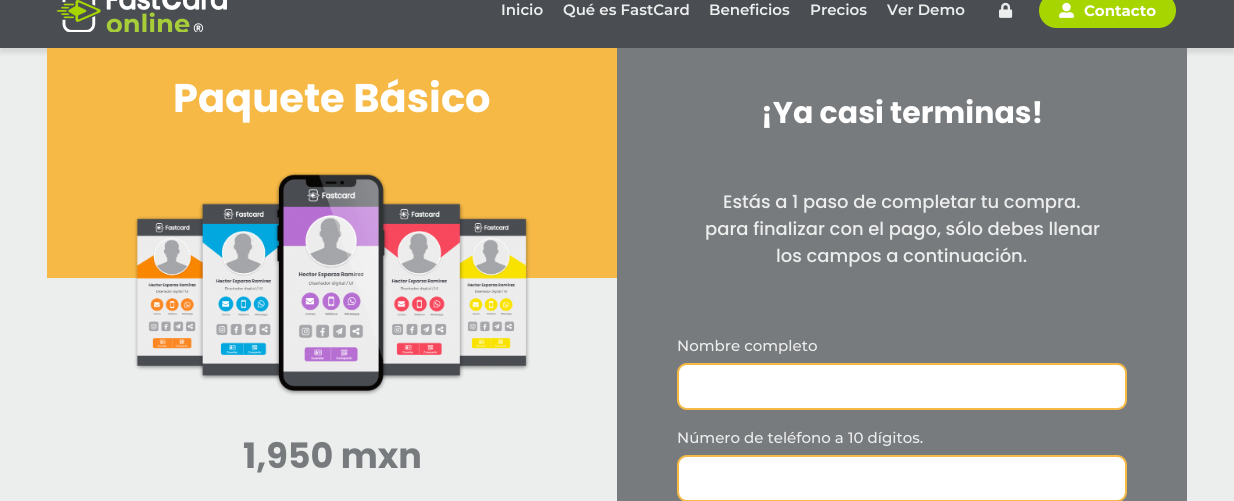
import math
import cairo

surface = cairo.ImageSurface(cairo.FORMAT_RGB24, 1234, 501)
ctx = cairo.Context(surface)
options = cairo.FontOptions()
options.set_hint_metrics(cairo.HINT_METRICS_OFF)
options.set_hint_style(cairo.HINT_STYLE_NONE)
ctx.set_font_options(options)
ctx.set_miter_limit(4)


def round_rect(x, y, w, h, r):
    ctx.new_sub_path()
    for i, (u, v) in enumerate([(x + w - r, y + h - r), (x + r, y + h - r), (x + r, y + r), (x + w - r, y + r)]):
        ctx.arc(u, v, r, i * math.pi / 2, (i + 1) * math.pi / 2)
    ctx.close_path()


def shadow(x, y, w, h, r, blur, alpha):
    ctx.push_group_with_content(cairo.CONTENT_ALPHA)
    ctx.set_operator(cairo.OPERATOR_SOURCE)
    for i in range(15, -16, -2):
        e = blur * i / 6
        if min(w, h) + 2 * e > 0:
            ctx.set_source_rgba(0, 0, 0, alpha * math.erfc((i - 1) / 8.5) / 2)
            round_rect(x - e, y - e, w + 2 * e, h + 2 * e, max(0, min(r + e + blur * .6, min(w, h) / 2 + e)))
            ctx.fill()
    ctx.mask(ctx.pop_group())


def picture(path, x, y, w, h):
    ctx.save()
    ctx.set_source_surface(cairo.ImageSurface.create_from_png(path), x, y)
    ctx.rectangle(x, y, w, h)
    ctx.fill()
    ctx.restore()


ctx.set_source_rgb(0.925, 0.929, 0.929)
ctx.paint()
ctx.set_source_rgb(0, 0, 0)
shadow(0, -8, 1234, 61, 0, 2.5, 0.1)
ctx.set_source_rgb(0.29, 0.306, 0.325)
ctx.rectangle(0, 0, 1234, 48)
ctx.fill()
picture("img1.png", 57, 0, 170, 32)
ctx.select_font_face("Montserrat SemiBold")
ctx.set_font_size(15)
ctx.set_source_rgb(0.925, 0.929, 0.929)
ctx.move_to(501, 15)
ctx.show_text("Inicio")
ctx.move_to(563, 15)
ctx.show_text("Qué es FastCard")
ctx.move_to(709, 15)
ctx.show_text("Beneficios")
ctx.move_to(810, 15)
ctx.show_text("Precios")
ctx.move_to(887, 15)
ctx.show_text("Ver Demo")
picture("img2.png", 999, 2, 14, 16)
ctx.set_source_rgb(0.655, 0.835, 0)
round_rect(1039, -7, 137, 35, 17.5)
ctx.fill()
picture("img3.png", 1059, 2, 15, 16)
ctx.select_font_face("Montserrat", cairo.FONT_SLANT_NORMAL, cairo.FONT_WEIGHT_BOLD)
ctx.set_source_rgb(1, 1, 1)
ctx.move_to(1084, 16)
ctx.show_text("Contacto")
ctx.set_source_rgb(0.961, 0.725, 0.271)
ctx.rectangle(47, 48, 570, 230)
ctx.fill()
ctx.select_font_face("Poppins", cairo.FONT_SLANT_NORMAL, cairo.FONT_WEIGHT_BOLD)
ctx.set_font_size(40)
ctx.set_source_rgb(1, 1, 1)
ctx.move_to(173, 112)
ctx.show_text("Paquete Básico")
picture("img4.png", 134, 172, 396, 224)
ctx.set_font_size(35)
ctx.set_source_rgb(0.471, 0.482, 0.494)
ctx.move_to(243, 468)
ctx.show_text("1,950 mxn")
ctx.rectangle(617, 48, 570, 453)
ctx.fill()
ctx.set_font_size(30)
ctx.set_source_rgb(1, 1, 1)
ctx.move_to(761, 123)
ctx.show_text("¡Ya casi terminas!")
ctx.select_font_face("Poppins Medium")
ctx.set_font_size(18)
ctx.set_source_rgb(0.925, 0.929, 0.929)
ctx.move_to(723, 208)
ctx.show_text("Estás a 1 paso de completar tu compra.")
ctx.move_to(705, 235)
ctx.show_text("para finalizar con el pago, sólo debes llenar")
ctx.move_to(776, 262)
ctx.show_text("los campos a continuación.")
ctx.select_font_face("Montserrat Medium")
ctx.set_font_size(15)
ctx.move_to(677, 351)
ctx.show_text("Nombre completo")
ctx.set_source_rgb(1, 1, 1)
round_rect(678, 364, 448, 45, 9)
ctx.fill_preserve()
ctx.set_source_rgb(0.961, 0.725, 0.271)
ctx.stroke()
ctx.set_source_rgb(0.925, 0.929, 0.929)
ctx.move_to(677, 443)
ctx.show_text("Número de teléfono a 10 dígitos.")
ctx.set_source_rgb(1, 1, 1)
round_rect(678, 456, 448, 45, 9)
ctx.fill_preserve()
ctx.set_source_rgb(0.961, 0.725, 0.271)
ctx.stroke()
surface.write_to_png("page.png")
